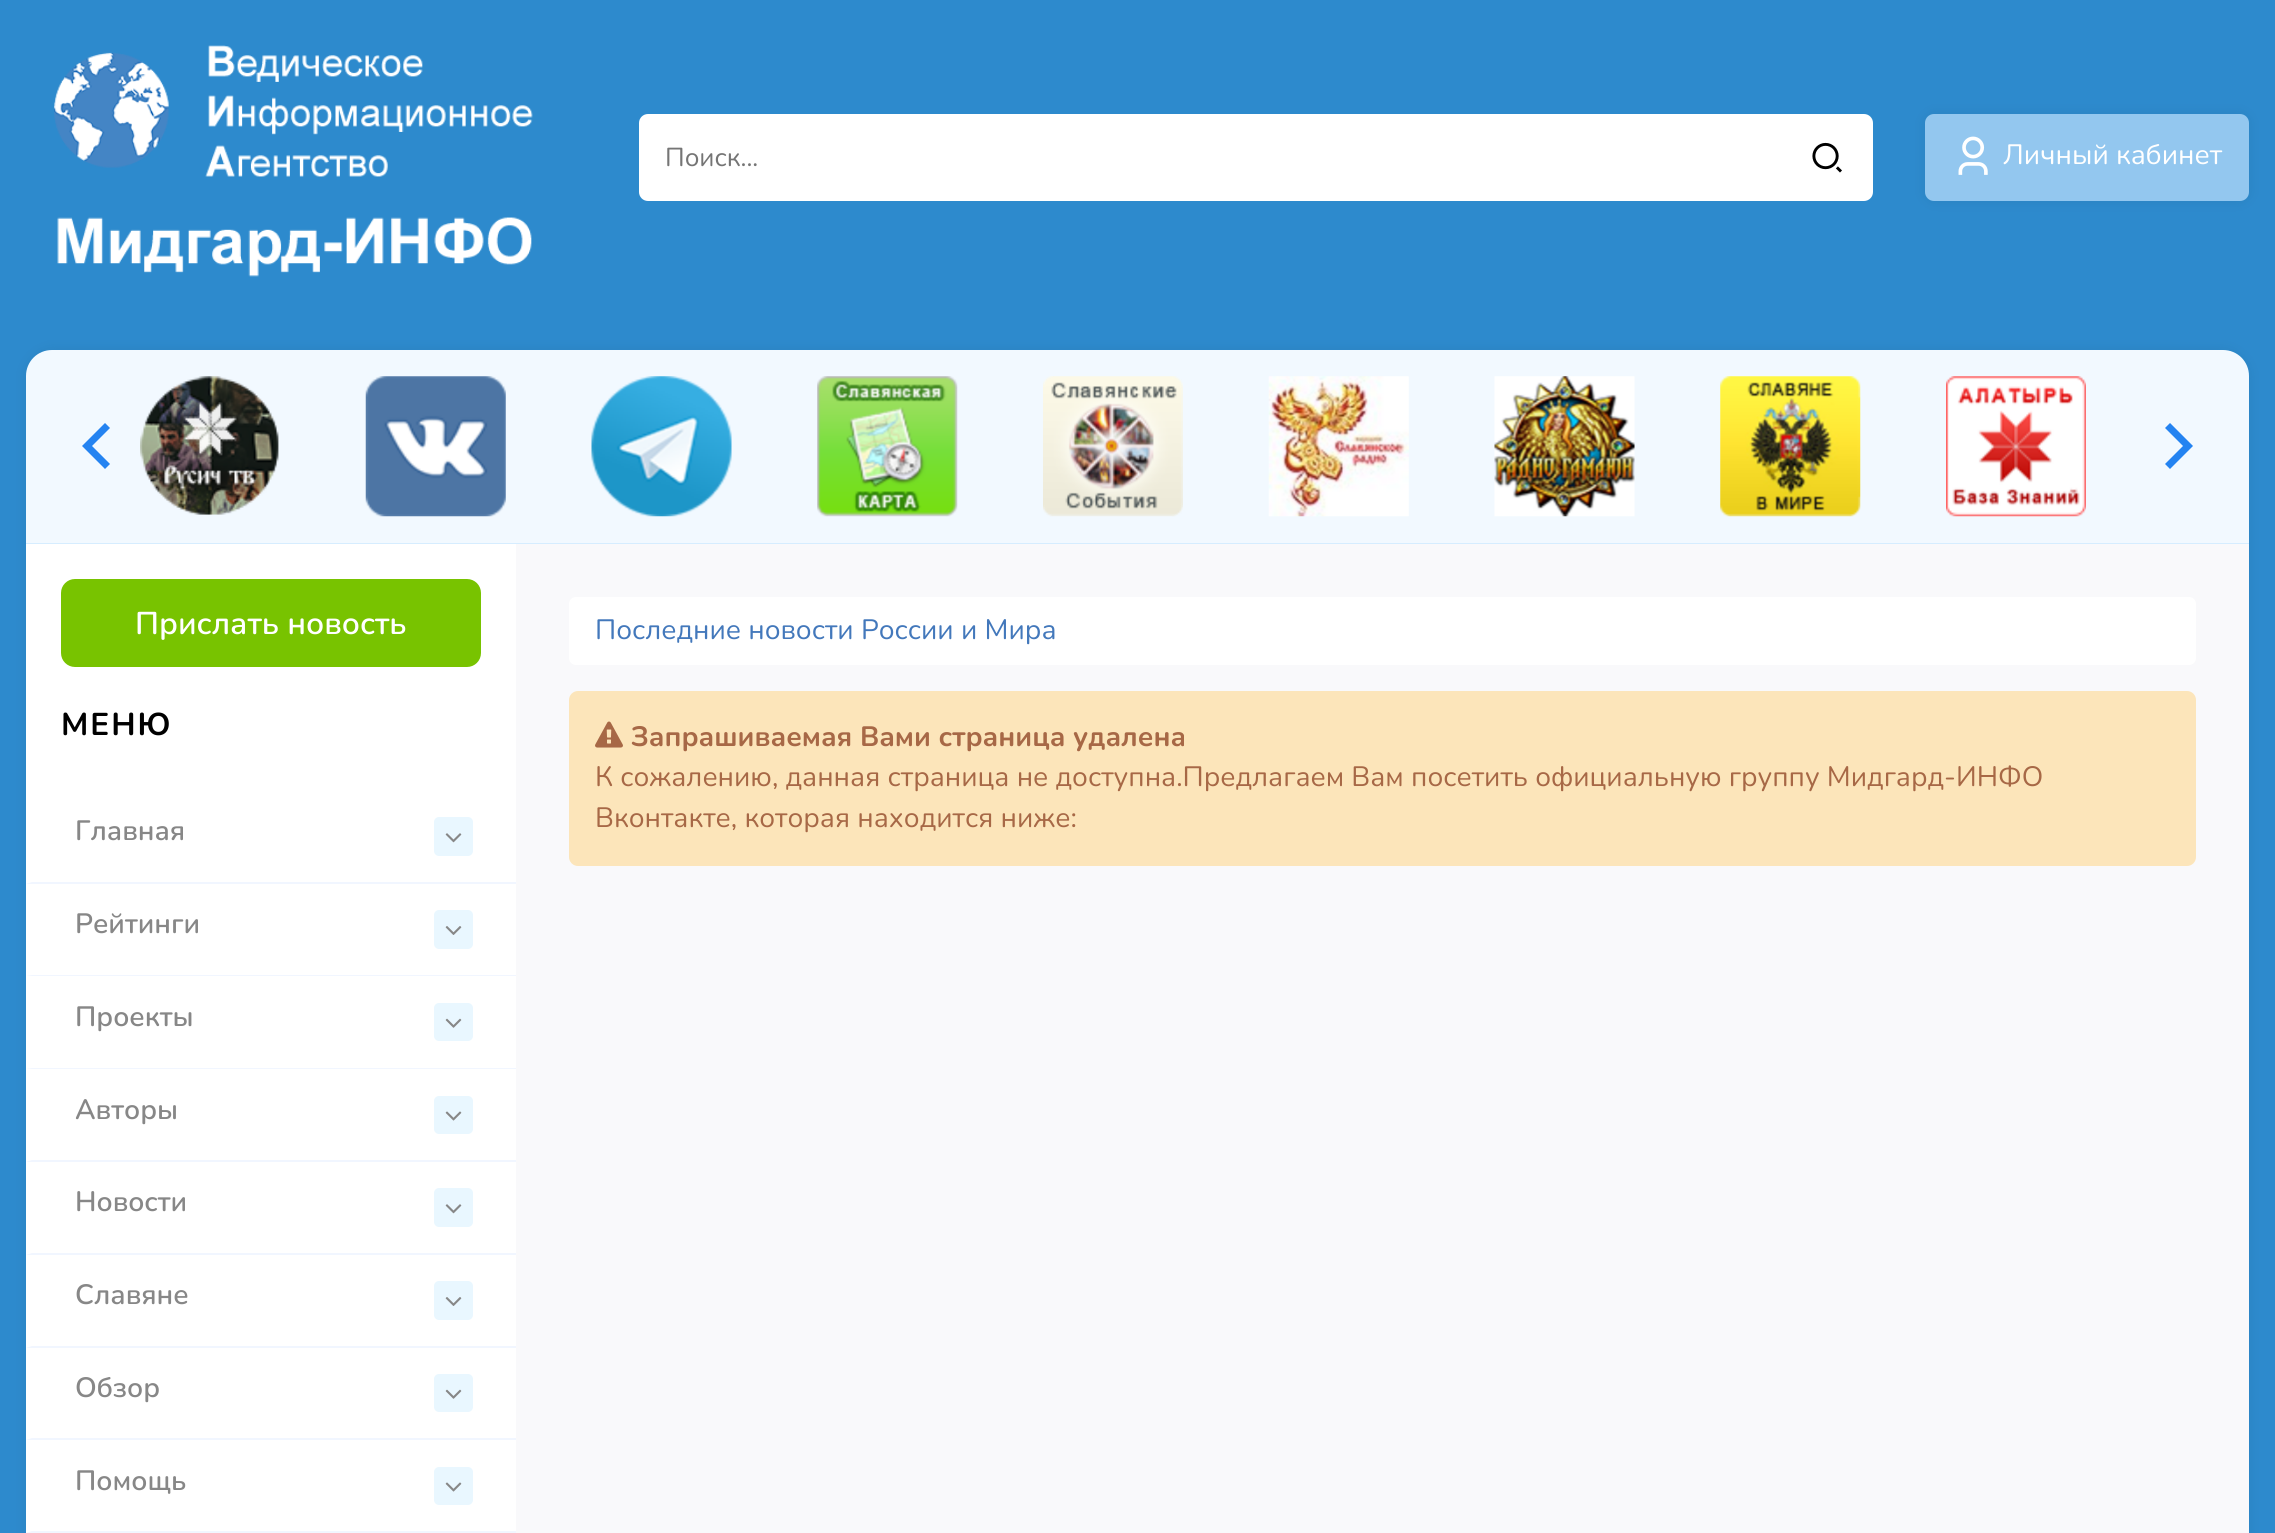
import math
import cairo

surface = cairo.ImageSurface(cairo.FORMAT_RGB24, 2275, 1533)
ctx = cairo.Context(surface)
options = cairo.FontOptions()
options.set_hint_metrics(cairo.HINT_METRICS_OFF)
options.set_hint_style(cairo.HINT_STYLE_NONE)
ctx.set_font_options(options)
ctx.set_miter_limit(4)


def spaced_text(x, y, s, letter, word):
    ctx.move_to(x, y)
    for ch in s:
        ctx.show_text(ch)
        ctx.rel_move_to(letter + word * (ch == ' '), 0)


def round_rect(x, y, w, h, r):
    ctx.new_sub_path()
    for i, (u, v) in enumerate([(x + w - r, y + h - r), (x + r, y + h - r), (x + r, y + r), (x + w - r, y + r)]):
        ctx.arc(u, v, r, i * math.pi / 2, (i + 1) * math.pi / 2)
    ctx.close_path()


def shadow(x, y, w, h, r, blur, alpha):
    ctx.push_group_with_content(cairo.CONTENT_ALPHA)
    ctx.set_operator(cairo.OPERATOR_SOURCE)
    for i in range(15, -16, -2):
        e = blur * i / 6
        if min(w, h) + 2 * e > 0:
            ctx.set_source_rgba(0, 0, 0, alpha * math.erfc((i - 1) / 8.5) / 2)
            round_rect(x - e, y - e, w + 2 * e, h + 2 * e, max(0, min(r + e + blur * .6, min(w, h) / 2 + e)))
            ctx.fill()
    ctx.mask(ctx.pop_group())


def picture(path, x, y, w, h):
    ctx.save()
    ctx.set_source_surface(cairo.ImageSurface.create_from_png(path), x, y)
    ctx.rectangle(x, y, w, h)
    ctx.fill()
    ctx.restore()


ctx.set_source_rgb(0.176, 0.541, 0.804)
ctx.paint()
picture("img1.png", 54, 45, 479, 232)
ctx.set_source_rgb(1, 1, 1)
round_rect(639, 114, 1234, 87, 9)
ctx.fill()
ctx.select_font_face("Nunito")
ctx.set_font_size(26)
ctx.set_source_rgb(0.459, 0.459, 0.459)
ctx.move_to(665, 166)
ctx.show_text("Поиск...")
picture("img2.png", 1812, 142, 30, 31)
ctx.set_source_rgb(0, 0, 0)
shadow(1925, 114, 324, 87, 9, 7, 0.07)
ctx.set_source_rgb(0.576, 0.78, 0.937)
round_rect(1925, 114, 324, 87, 9)
ctx.fill()
picture("img3.png", 1958, 136, 30, 39)
ctx.set_font_size(28)
ctx.set_source_rgb(1, 1, 1)
ctx.move_to(2003, 164)
ctx.show_text("Личный кабинет")
ctx.set_source_rgb(0, 0, 0)
shadow(26, 350, 2223, 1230, 26, 7, 0.07)
ctx.set_source_rgb(0.949, 0.976, 1)
ctx.new_path()
ctx.move_to(52, 350)
ctx.line_to(2223, 350)
ctx.curve_to(2237.5, 350, 2249, 361.5, 2249, 376)
ctx.line_to(2249, 543)
ctx.line_to(26, 543)
ctx.line_to(26, 376)
ctx.curve_to(26, 361.5, 37.5, 350, 52, 350)
ctx.close_path()
ctx.fill()
picture("img4.png", 140, 376, 139, 139)
picture("img5.png", 365, 376, 141, 141)
picture("img6.png", 591, 376, 141, 141)
picture("img7.png", 817, 376, 141, 141)
picture("img8.png", 1043, 376, 140, 141)
picture("img9.png", 1268, 376, 141, 141)
picture("img10.png", 1494, 376, 141, 141)
picture("img11.png", 1720, 376, 141, 141)
picture("img12.png", 1946, 376, 140, 141)
ctx.set_source_rgb(0.141, 0.514, 0.945)
ctx.new_path()
ctx.move_to(92, 446)
ctx.line_to(110, 464)
ctx.line_to(105, 469)
ctx.line_to(82, 446)
ctx.line_to(105, 423)
ctx.line_to(110, 428)
ctx.close_path()
ctx.fill()
ctx.new_path()
ctx.move_to(2183, 446)
ctx.line_to(2165, 428)
ctx.line_to(2170, 423)
ctx.line_to(2193, 446)
ctx.line_to(2170, 469)
ctx.line_to(2165, 464)
ctx.close_path()
ctx.fill()
ctx.set_source_rgb(0.839, 0.929, 1)
ctx.rectangle(26, 543, 2223, 1)
ctx.fill()
ctx.set_source_rgb(1, 1, 1)
ctx.rectangle(26, 544, 490, 989)
ctx.fill()
ctx.set_source_rgb(0.471, 0.765, 0)
round_rect(61, 579, 420, 88, 14)
ctx.fill()
ctx.select_font_face("Nunito SemiBold")
ctx.set_font_size(31.5)
ctx.set_source_rgb(1, 1, 1)
ctx.move_to(135, 634)
ctx.show_text("Прислать новость")
ctx.select_font_face("Nunito", cairo.FONT_SLANT_NORMAL, cairo.FONT_WEIGHT_BOLD)
ctx.set_source_rgb(0, 0, 0)
spaced_text(61, 735, "МЕНЮ", 2, 0)
ctx.set_source_rgb(0.945, 0.961, 1)
ctx.new_path()
ctx.move_to(516, 884)
ctx.line_to(26, 884)
ctx.line_to(32, 882)
ctx.line_to(516, 882)
ctx.close_path()
ctx.fill()
ctx.select_font_face("Nunito SemiBold")
ctx.set_font_size(28)
ctx.set_source_rgb(0.529, 0.529, 0.529)
ctx.move_to(75, 840)
ctx.show_text("Главная")
ctx.set_source_rgb(0.914, 0.965, 1)
round_rect(434, 817, 39, 39, 5)
ctx.fill()
picture("img13.png", 445, 833, 17, 10)
ctx.set_source_rgb(0.945, 0.961, 1)
ctx.new_path()
ctx.move_to(516, 976)
ctx.line_to(26, 976)
ctx.line_to(32, 975)
ctx.line_to(516, 975)
ctx.close_path()
ctx.fill()
ctx.set_source_rgb(0.529, 0.529, 0.529)
ctx.move_to(75, 933)
ctx.show_text("Рейтинги")
ctx.set_source_rgb(0.914, 0.965, 1)
round_rect(434, 910, 39, 39, 5)
ctx.fill()
picture("img14.png", 445, 926, 17, 9)
ctx.set_source_rgb(0.945, 0.961, 1)
ctx.new_path()
ctx.move_to(516, 1069)
ctx.line_to(26, 1069)
ctx.line_to(32, 1068)
ctx.line_to(516, 1068)
ctx.close_path()
ctx.fill()
ctx.set_source_rgb(0.529, 0.529, 0.529)
ctx.move_to(75, 1026)
ctx.show_text("Проекты")
ctx.set_source_rgb(0.914, 0.965, 1)
round_rect(434, 1003, 39, 38, 5)
ctx.fill()
picture("img15.png", 445, 1018, 17, 10)
ctx.set_source_rgb(0.945, 0.961, 1)
ctx.new_path()
ctx.move_to(516, 1162)
ctx.line_to(26, 1162)
ctx.line_to(32, 1160)
ctx.line_to(516, 1160)
ctx.close_path()
ctx.fill()
ctx.set_source_rgb(0.529, 0.529, 0.529)
ctx.move_to(75, 1119)
ctx.show_text("Авторы")
ctx.set_source_rgb(0.914, 0.965, 1)
round_rect(434, 1096, 39, 38, 5)
ctx.fill()
picture("img16.png", 445, 1111, 17, 10)
ctx.set_source_rgb(0.945, 0.961, 1)
ctx.new_path()
ctx.move_to(516, 1255)
ctx.line_to(26, 1255)
ctx.line_to(32, 1253)
ctx.line_to(516, 1253)
ctx.close_path()
ctx.fill()
ctx.set_source_rgb(0.529, 0.529, 0.529)
ctx.move_to(75, 1211)
ctx.show_text("Новости")
ctx.set_source_rgb(0.914, 0.965, 1)
round_rect(434, 1188, 39, 39, 5)
ctx.fill()
picture("img13.png", 445, 1204, 17, 10)
ctx.set_source_rgb(0.945, 0.961, 1)
ctx.new_path()
ctx.move_to(516, 1348)
ctx.line_to(26, 1348)
ctx.line_to(32, 1346)
ctx.line_to(516, 1346)
ctx.close_path()
ctx.fill()
ctx.set_source_rgb(0.529, 0.529, 0.529)
ctx.move_to(75, 1304)
ctx.show_text("Славяне")
ctx.set_source_rgb(0.914, 0.965, 1)
round_rect(434, 1281, 39, 39, 5)
ctx.fill()
picture("img14.png", 445, 1297, 17, 9)
ctx.set_source_rgb(0.945, 0.961, 1)
ctx.new_path()
ctx.move_to(516, 1440)
ctx.line_to(26, 1440)
ctx.line_to(32, 1438)
ctx.line_to(516, 1438)
ctx.close_path()
ctx.fill()
ctx.set_source_rgb(0.529, 0.529, 0.529)
ctx.move_to(75, 1397)
ctx.show_text("Обзор")
ctx.set_source_rgb(0.914, 0.965, 1)
round_rect(434, 1374, 39, 38, 5)
ctx.fill()
picture("img15.png", 445, 1389, 17, 10)
ctx.set_source_rgb(0.945, 0.961, 1)
ctx.new_path()
ctx.move_to(516, 1533)
ctx.line_to(26, 1533)
ctx.line_to(32, 1531)
ctx.line_to(516, 1531)
ctx.close_path()
ctx.fill()
ctx.set_source_rgb(0.529, 0.529, 0.529)
ctx.move_to(75, 1490)
ctx.show_text("Помощь")
ctx.set_source_rgb(0.914, 0.965, 1)
round_rect(434, 1467, 39, 38, 5)
ctx.fill()
picture("img16.png", 445, 1482, 17, 10)
ctx.set_source_rgb(0.976, 0.976, 0.984)
ctx.rectangle(516, 544, 1733, 989)
ctx.fill()
ctx.set_source_rgb(1, 1, 1)
round_rect(569, 597, 1627, 68, 7)
ctx.fill()
ctx.select_font_face("Nunito")
ctx.set_source_rgb(0.263, 0.471, 0.733)
ctx.move_to(595, 639)
ctx.show_text("Последние новости России и Мира")
ctx.set_source_rgb(0.988, 0.898, 0.729)
round_rect(569, 691, 1627, 175, 9)
ctx.fill()
picture("img17.png", 595, 721, 28, 27)
ctx.select_font_face("Nunito", cairo.FONT_SLANT_NORMAL, cairo.FONT_WEIGHT_BOLD)
ctx.set_source_rgb(0.655, 0.408, 0.275)
ctx.move_to(631, 746)
ctx.show_text("Запрашиваемая Вами страница удалена")
ctx.select_font_face("Nunito")
ctx.move_to(595, 786)
ctx.show_text("К сожалению, данная страница не доступна.Предлагаем Вам посетить официальную группу Мидгард-ИНФО")
ctx.move_to(595, 827)
ctx.show_text("Вконтакте, которая находится ниже:")
surface.write_to_png("page.png")
